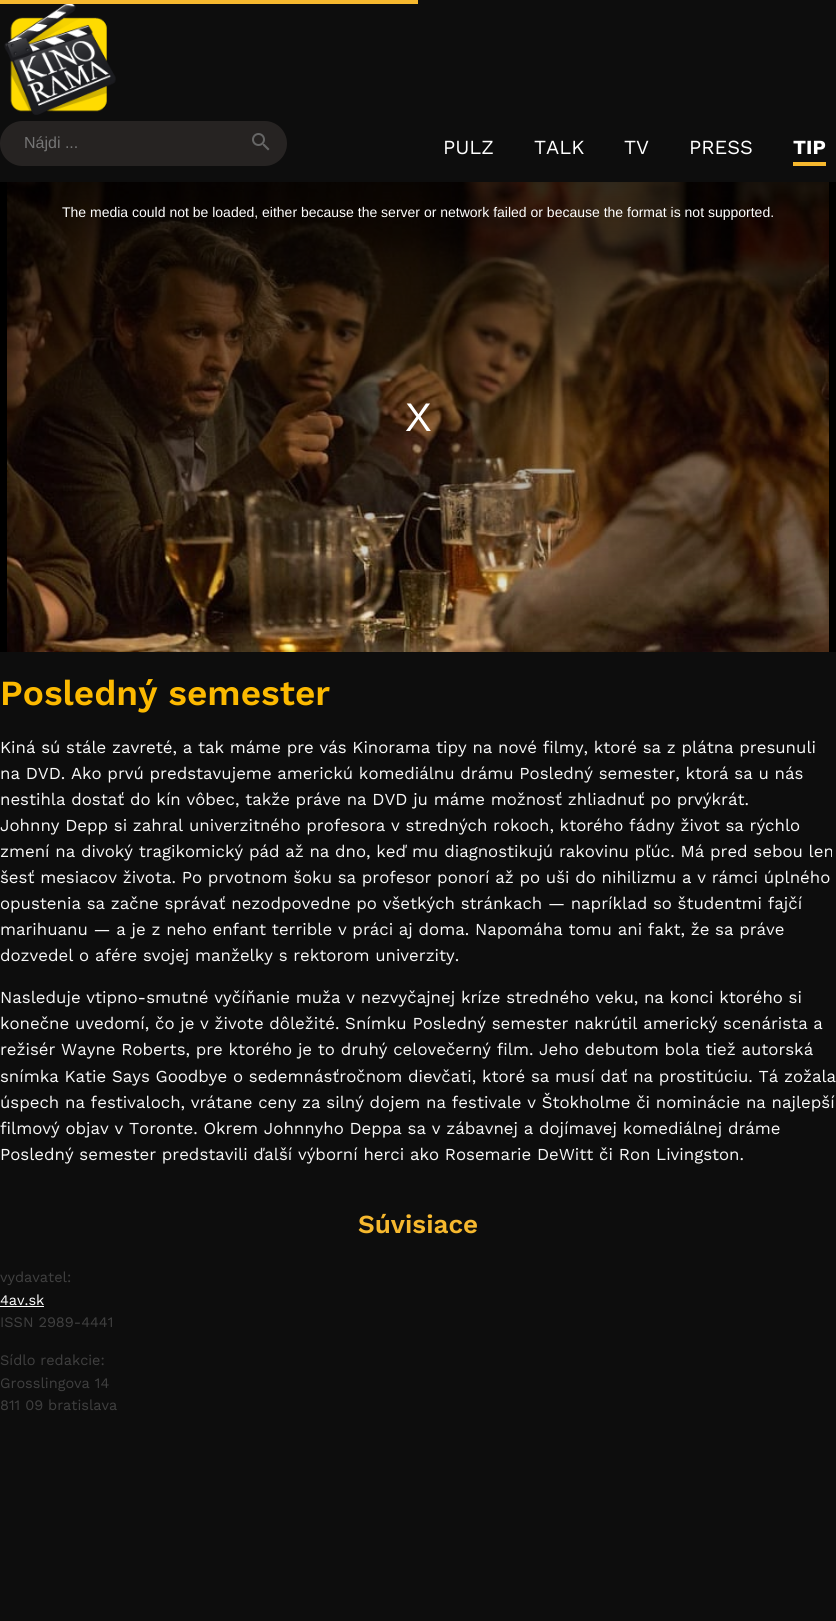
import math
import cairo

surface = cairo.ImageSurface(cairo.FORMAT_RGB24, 836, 1621)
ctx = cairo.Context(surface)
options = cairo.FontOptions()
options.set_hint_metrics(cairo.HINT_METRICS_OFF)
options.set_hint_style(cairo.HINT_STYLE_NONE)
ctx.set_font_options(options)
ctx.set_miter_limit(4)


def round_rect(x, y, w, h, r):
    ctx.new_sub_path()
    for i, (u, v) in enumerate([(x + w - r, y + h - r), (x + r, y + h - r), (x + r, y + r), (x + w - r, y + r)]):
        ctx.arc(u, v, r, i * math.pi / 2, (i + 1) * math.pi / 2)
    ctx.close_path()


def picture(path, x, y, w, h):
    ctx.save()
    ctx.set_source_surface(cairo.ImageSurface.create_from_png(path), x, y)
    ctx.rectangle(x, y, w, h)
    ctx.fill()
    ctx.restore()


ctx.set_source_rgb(0.051, 0.051, 0.051)
ctx.paint()
ctx.set_source_rgb(0.961, 0.722, 0.18)
ctx.rectangle(0, 0, 418, 4)
ctx.fill()
picture("img1.png", 4, 4, 112, 111)
ctx.set_source_rgb(0.149, 0.137, 0.133)
round_rect(0, 121, 287, 45, 22.5)
ctx.fill()
ctx.select_font_face("Liberation Sans")
ctx.set_font_size(16)
ctx.set_source_rgb(0.459, 0.459, 0.459)
ctx.move_to(24, 148)
ctx.show_text("Nájdi ...")
picture("img2.png", 252, 133, 18, 18)
ctx.select_font_face("Work Sans")
ctx.set_font_size(20)
ctx.set_source_rgb(1, 1, 1)
ctx.move_to(443, 154)
ctx.show_text("PULZ")
ctx.move_to(534, 154)
ctx.show_text("TALK")
ctx.move_to(624, 154)
ctx.show_text("TV")
ctx.move_to(689, 154)
ctx.show_text("PRESS")
ctx.select_font_face("Work Sans", cairo.FONT_SLANT_NORMAL, cairo.FONT_WEIGHT_BOLD)
ctx.move_to(793, 154)
ctx.show_text("TIP")
ctx.set_source_rgb(0.961, 0.722, 0.18)
ctx.rectangle(793, 162, 33, 4)
ctx.fill()
ctx.set_source_rgb(0, 0, 0)
ctx.rectangle(0, 182, 836, 470)
ctx.fill()
picture("img3.png", 7, 182, 822, 470)
ctx.select_font_face("Liberation Sans")
ctx.set_font_size(14)
ctx.set_source_rgb(1, 1, 1)
ctx.move_to(62, 217)
ctx.show_text("The media could not be loaded, either because the server or network failed or because the format is not supported.")
ctx.set_font_size(40)
ctx.move_to(405, 431)
ctx.show_text("X")
ctx.select_font_face("Work Sans SemiBold")
ctx.set_font_size(35.25)
ctx.set_source_rgb(0.988, 0.725, 0)
ctx.move_to(0, 705)
ctx.show_text("Posledný semester")
ctx.select_font_face("Work Sans")
ctx.set_font_size(16.8)
ctx.set_source_rgb(0.976, 0.976, 0.976)
ctx.move_to(0, 753)
ctx.show_text("Kiná sú stále zavreté, a tak máme pre vás Kinorama tipy na nové filmy, ktoré sa z plátna presunuli")
ctx.move_to(0, 779)
ctx.show_text("na DVD. Ako prvú predstavujeme americkú komediálnu drámu Posledný semester, ktorá sa u nás")
ctx.move_to(0, 805)
ctx.show_text("nestihla dostať do kín vôbec, takže práve na DVD ju máme možnosť zhliadnuť po prvýkrát.")
ctx.move_to(0, 831)
ctx.show_text("Johnny Depp si zahral univerzitného profesora v stredných rokoch, ktorého fádny život sa rýchlo")
ctx.move_to(0, 857)
ctx.show_text("zmení na divoký tragikomický pád až na dno, keď mu diagnostikujú rakovinu pľúc. Má pred sebou len")
ctx.move_to(0, 883)
ctx.show_text("šesť mesiacov života. Po prvotnom šoku sa profesor ponorí až po uši do nihilizmu a v rámci úplného")
ctx.move_to(0, 909)
ctx.show_text("opustenia sa začne správať nezodpovedne po všetkých stránkach — napríklad so študentmi fajčí")
ctx.move_to(0, 935)
ctx.show_text("marihuanu — a je z neho enfant terrible v práci aj doma. Napomáha tomu ani fakt, že sa práve")
ctx.move_to(0, 961)
ctx.show_text("dozvedel o afére svojej manželky s rektorom univerzity.")
ctx.move_to(0, 1003)
ctx.show_text("Nasleduje vtipno-smutné vyčíňanie muža v nezvyčajnej kríze stredného veku, na konci ktorého si")
ctx.move_to(0, 1029)
ctx.show_text("konečne uvedomí, čo je v živote dôležité. Snímku Posledný semester nakrútil americký scenárista a")
ctx.move_to(0, 1055)
ctx.show_text("režisér Wayne Roberts, pre ktorého je to druhý celovečerný film. Jeho debutom bola tiež autorská")
ctx.move_to(0, 1082)
ctx.show_text("snímka Katie Says Goodbye o sedemnásťročnom dievčati, ktoré sa musí dať na prostitúciu. Tá zožala")
ctx.move_to(0, 1108)
ctx.show_text("úspech na festivaloch, vrátane ceny za silný dojem na festivale v Štokholme či nominácie na najlepší")
ctx.move_to(0, 1134)
ctx.show_text("filmový objav v Toronte. Okrem Johnnyho Deppa sa v zábavnej a dojímavej komediálnej dráme")
ctx.move_to(0, 1160)
ctx.show_text("Posledný semester predstavili ďalší výborní herci ako Rosemarie DeWitt či Ron Livingston.")
ctx.select_font_face("Work Sans SemiBold")
ctx.set_font_size(26)
ctx.set_source_rgb(0.961, 0.722, 0.18)
ctx.move_to(358, 1233)
ctx.show_text("Súvisiace")
ctx.select_font_face("Work Sans")
ctx.set_font_size(14.5)
ctx.set_source_rgb(0.251, 0.251, 0.251)
ctx.move_to(0, 1282)
ctx.show_text("vydavatel:")
ctx.set_source_rgb(1, 1, 1)
ctx.move_to(0, 1305)
ctx.show_text("4av.sk")
ctx.rectangle(0, 1306, 44, 1)
ctx.fill()
ctx.set_source_rgb(0.251, 0.251, 0.251)
ctx.move_to(0, 1327)
ctx.show_text("ISSN 2989-4441")
ctx.move_to(0, 1365)
ctx.show_text("Sídlo redakcie:")
ctx.move_to(0, 1388)
ctx.show_text("Grosslingova 14")
ctx.move_to(0, 1410)
ctx.show_text("811 09 bratislava")
surface.write_to_png("page.png")
